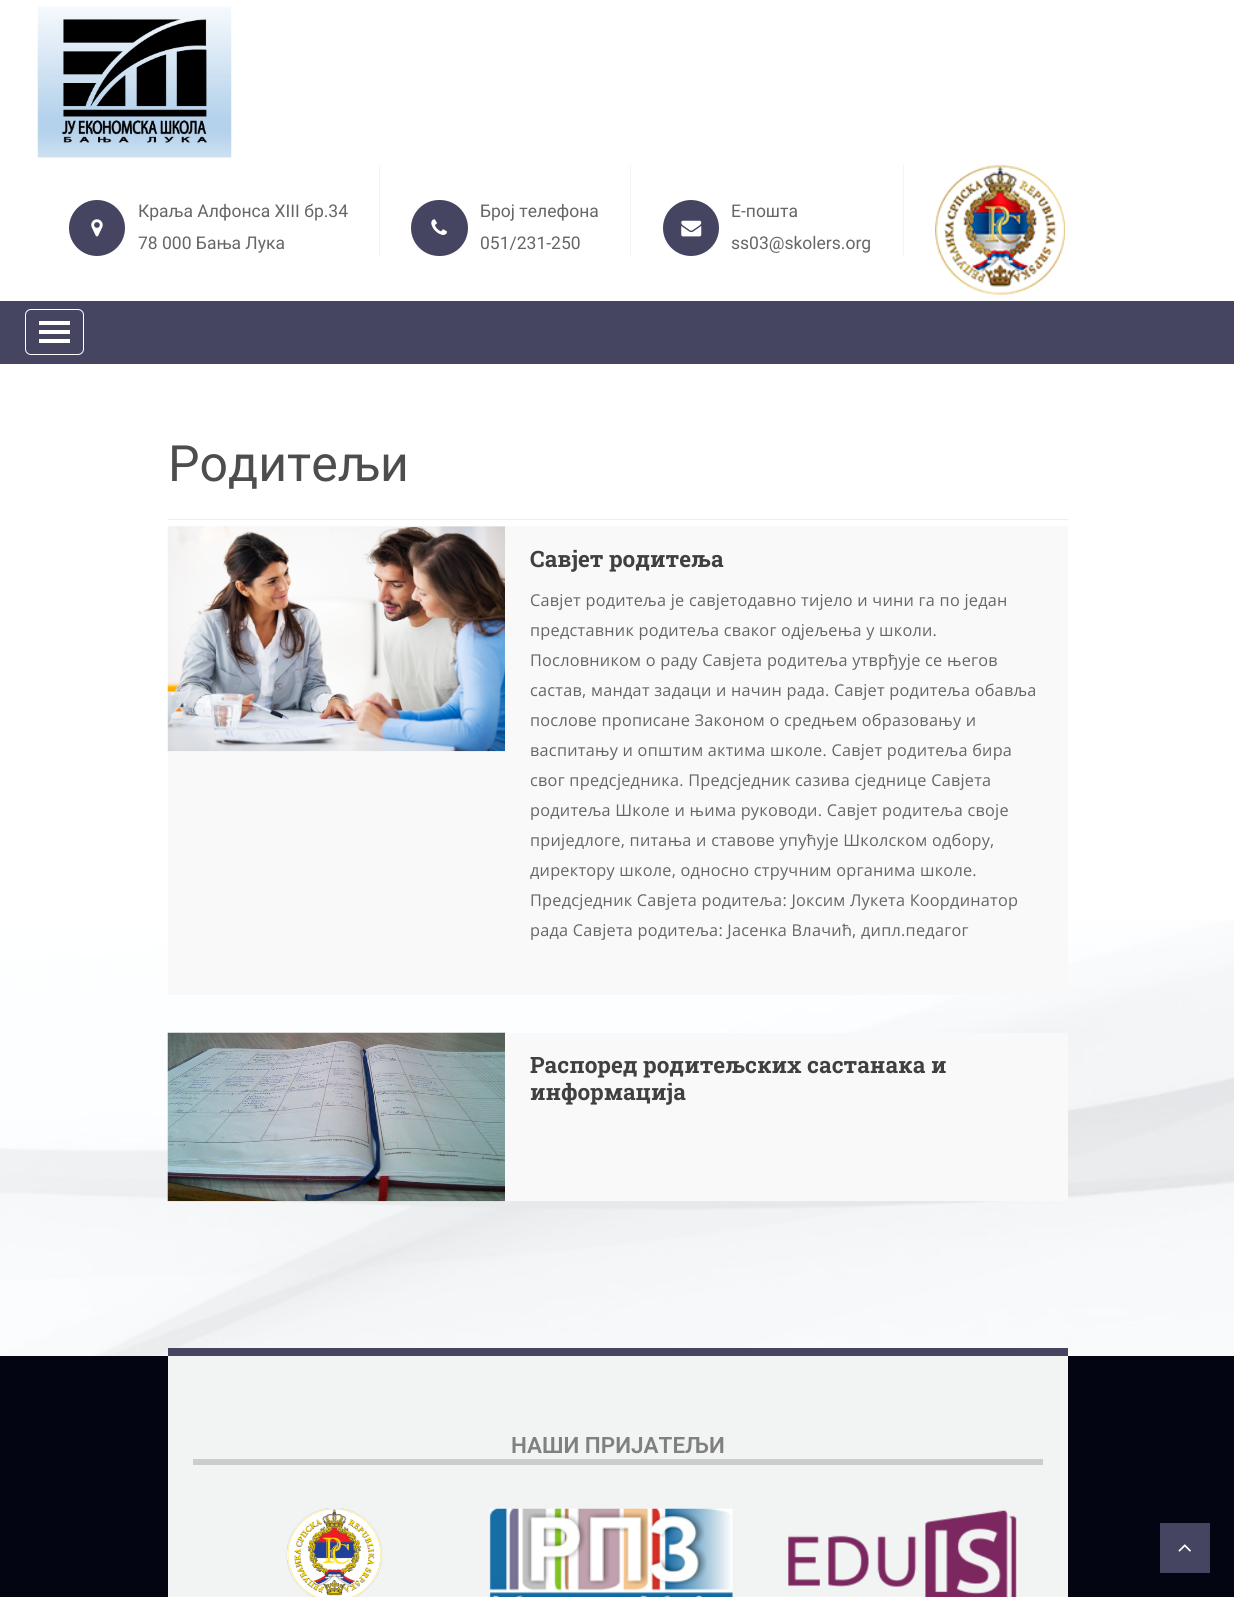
import math
import cairo

surface = cairo.ImageSurface(cairo.FORMAT_RGB24, 1234, 1597)
ctx = cairo.Context(surface)
options = cairo.FontOptions()
options.set_hint_metrics(cairo.HINT_METRICS_OFF)
options.set_hint_style(cairo.HINT_STYLE_NONE)
ctx.set_font_options(options)
ctx.set_miter_limit(4)


def spaced_text(x, y, s, letter, word):
    ctx.move_to(x, y)
    for ch in s:
        ctx.show_text(ch)
        ctx.rel_move_to(letter + word * (ch == ' '), 0)


def round_rect(x, y, w, h, r):
    ctx.new_sub_path()
    for i, (u, v) in enumerate([(x + w - r, y + h - r), (x + r, y + h - r), (x + r, y + r), (x + w - r, y + r)]):
        ctx.arc(u, v, r, i * math.pi / 2, (i + 1) * math.pi / 2)
    ctx.close_path()


def picture(path, x, y, w, h):
    ctx.save()
    ctx.set_source_surface(cairo.ImageSurface.create_from_png(path), x, y)
    ctx.rectangle(x, y, w, h)
    ctx.fill()
    ctx.restore()


ctx.set_source_rgb(1, 1, 1)
ctx.paint()
picture("img1.png", 37, 6, 195, 152)
ctx.set_source_rgb(0.953, 0.953, 0.953)
ctx.rectangle(379, 165, 1, 91)
ctx.fill()
ctx.set_source_rgb(0.271, 0.271, 0.38)
ctx.arc(97, 228, 28, 0, 2 * math.pi)
ctx.fill()
picture("img2.png", 91, 219, 12, 18)
ctx.select_font_face("Roboto")
ctx.set_font_size(17.5)
ctx.set_source_rgb(0.4, 0.4, 0.4)
ctx.move_to(138, 217)
ctx.show_text("Краља Алфонса XIII бр.34")
ctx.move_to(138, 249)
ctx.show_text("78 000 Бања Лука")
ctx.set_source_rgb(0.953, 0.953, 0.953)
ctx.rectangle(630, 165, 1, 91)
ctx.fill()
ctx.set_source_rgb(0.271, 0.271, 0.38)
round_rect(411, 200, 57, 56, 28)
ctx.fill()
picture("img3.png", 431, 219, 16, 16)
ctx.set_source_rgb(0.4, 0.4, 0.4)
ctx.move_to(480, 217)
ctx.show_text("Број телефона")
ctx.move_to(480, 249)
ctx.show_text("051/231-250")
ctx.set_source_rgb(0.953, 0.953, 0.953)
ctx.rectangle(903, 165, 1, 91)
ctx.fill()
ctx.set_source_rgb(0.271, 0.271, 0.38)
ctx.arc(691, 228, 28, 0, 2 * math.pi)
ctx.fill()
picture("img4.png", 681, 220, 21, 17)
ctx.set_source_rgb(0.4, 0.4, 0.4)
ctx.move_to(731, 217)
ctx.show_text("Е-пошта")
ctx.move_to(731, 249)
ctx.show_text("ss03@skolers.org")
picture("img5.png", 935, 165, 130, 130)
ctx.set_source_rgb(0.271, 0.271, 0.38)
ctx.rectangle(0, 301, 1234, 63)
ctx.fill()
round_rect(25.5, 309.5, 58, 45, 5.5)
ctx.set_source_rgb(1, 1, 1)
ctx.set_line_width(1)
ctx.stroke()
ctx.rectangle(39, 321, 31, 4)
ctx.fill()
ctx.rectangle(39, 330, 31, 4)
ctx.fill()
ctx.rectangle(39, 339, 31, 4)
ctx.fill()
picture("img6.png", 0, 920, 1234, 436)
ctx.set_font_size(50)
ctx.set_source_rgb(0.302, 0.302, 0.302)
ctx.move_to(168, 481)
ctx.show_text("Родитељи")
ctx.set_source_rgb(0.933, 0.933, 0.933)
ctx.rectangle(168, 519, 900, 1)
ctx.fill()
ctx.set_source_rgb(0.973, 0.973, 0.973)
ctx.rectangle(168, 526, 900, 469)
ctx.fill()
picture("img7.png", 167, 526, 338, 226)
ctx.select_font_face("Roboto Slab", cairo.FONT_SLANT_NORMAL, cairo.FONT_WEIGHT_BOLD)
ctx.set_font_size(22.5)
ctx.set_source_rgb(0.251, 0.251, 0.251)
ctx.move_to(530, 567)
ctx.show_text("Савјет родитеља")
ctx.select_font_face("Open Sans")
ctx.set_font_size(16.25)
ctx.set_source_rgb(0.4, 0.4, 0.4)
spaced_text(530, 606, "Савјет родитеља је савјетодавно тијело и чини га по један", 0.25, 0)
spaced_text(530, 636, "представник родитеља сваког одјељења у школи.", 0.25, 0)
spaced_text(530, 666, "Пословником о раду Савјета родитеља утврђује се његов", 0.25, 0)
spaced_text(530, 696, "састав, мандат задаци и начин рада. Савјет родитеља обавља", 0.25, 0)
spaced_text(530, 726, "послове прописане Законом о средњем образовању и", 0.25, 0)
spaced_text(530, 756, "васпитању и општим актима школе. Савјет родитеља бира", 0.25, 0)
spaced_text(530, 786, "свог предсједника. Предсједник сазива сједнице Савјета", 0.25, 0)
spaced_text(530, 816, "родитеља Школе и њима руководи. Савјет родитеља своје", 0.25, 0)
spaced_text(530, 846, "приједлоге, питања и ставове упућује Школском одбору,", 0.25, 0)
spaced_text(530, 876, "директору школе, односно стручним органима школе.", 0.25, 0)
spaced_text(530, 906, "Предсједник Савјета родитеља: Јоксим Лукета Координатор", 0.25, 0)
spaced_text(530, 936, "рада Савјета родитеља: Јасенка Влачић, дипл.педагог", 0.25, 0)
ctx.set_source_rgb(0.973, 0.973, 0.973)
ctx.rectangle(505, 1033, 563, 168)
ctx.fill()
picture("img8.png", 167, 1032, 338, 170)
ctx.select_font_face("Roboto Slab", cairo.FONT_SLANT_NORMAL, cairo.FONT_WEIGHT_BOLD)
ctx.set_font_size(22.5)
ctx.set_source_rgb(0.251, 0.251, 0.251)
ctx.move_to(530, 1073)
ctx.show_text("Распоред родитељских састанака и")
ctx.move_to(530, 1100)
ctx.show_text("информација")
ctx.set_source_rgb(0.012, 0.02, 0.078)
ctx.rectangle(0, 1356, 1234, 241)
ctx.fill()
ctx.set_source_rgb(0.949, 0.953, 0.953)
ctx.rectangle(168, 1356, 900, 241)
ctx.fill()
ctx.set_source_rgb(0.271, 0.271, 0.38)
ctx.rectangle(168, 1348, 900, 8)
ctx.fill()
ctx.set_source_rgb(0.8, 0.8, 0.8)
ctx.rectangle(193, 1459, 850, 6)
ctx.fill()
ctx.select_font_face("Roboto SemiBold")
ctx.set_source_rgb(0.502, 0.502, 0.502)
ctx.move_to(511, 1453)
ctx.show_text("НАШИ ПРИЈАТЕЉИ")
picture("img9.png", 286, 1508, 96, 89)
picture("img10.png", 489, 1508, 244, 89)
picture("img11.png", 788, 1510, 229, 87)
ctx.set_source_rgb(0.271, 0.271, 0.38)
ctx.rectangle(1160, 1523, 50, 50)
ctx.fill()
picture("img12.png", 1178, 1544, 13, 8)
surface.write_to_png("page.png")
